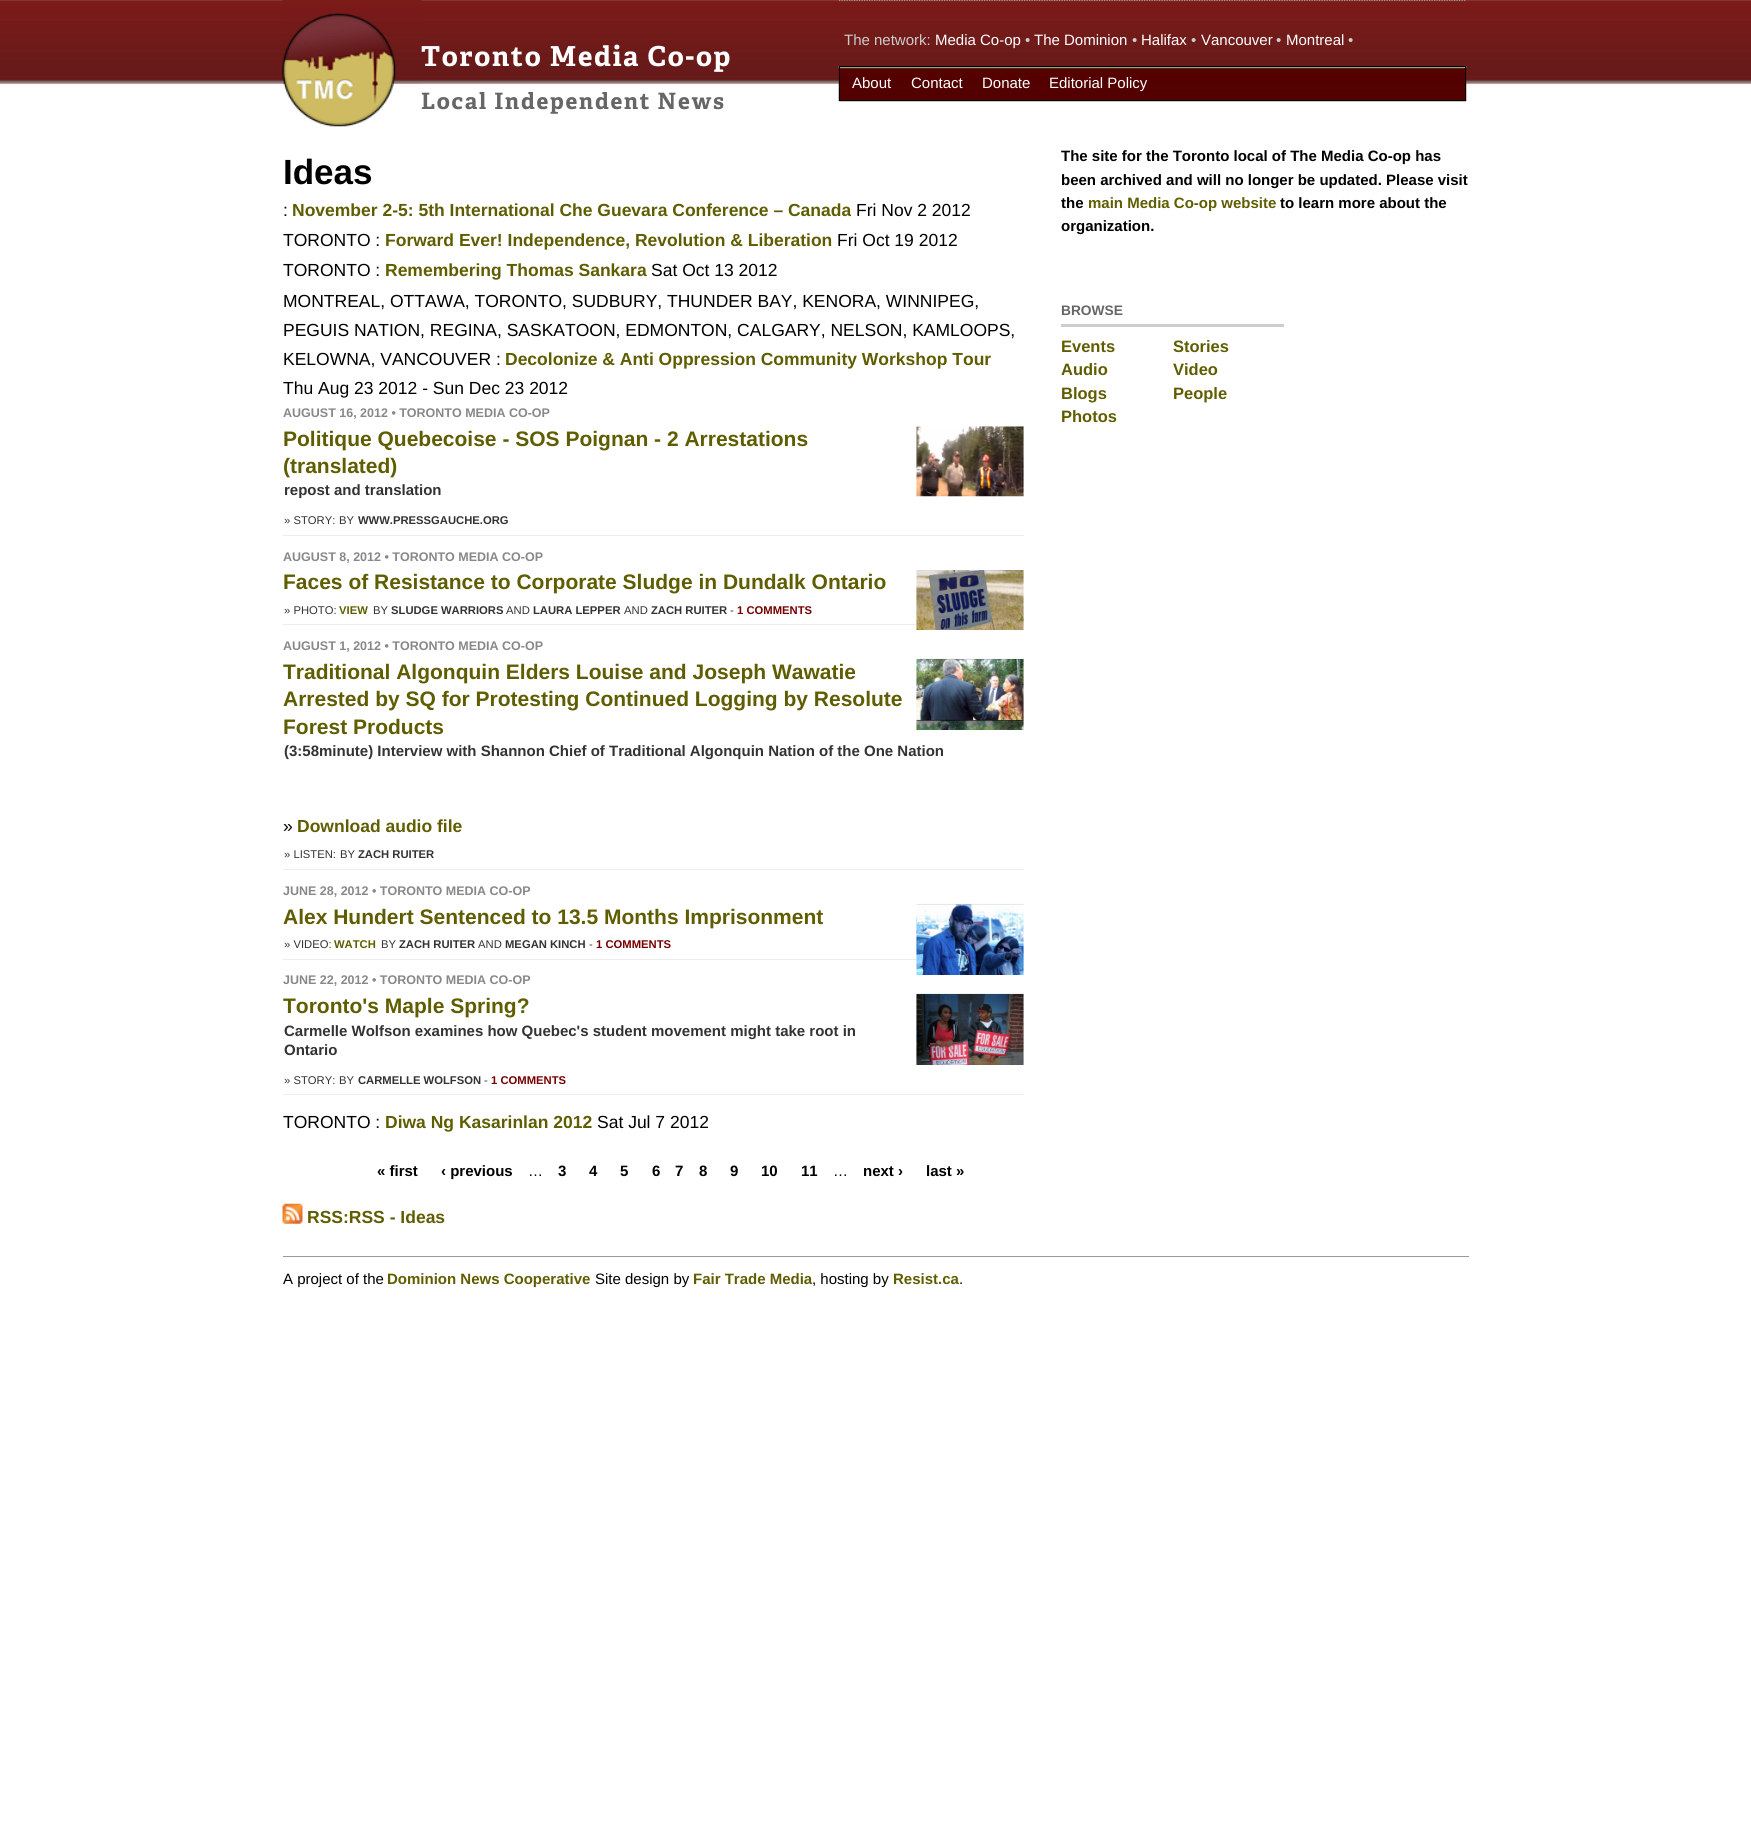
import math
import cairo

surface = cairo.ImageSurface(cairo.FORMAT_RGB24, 1751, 1826)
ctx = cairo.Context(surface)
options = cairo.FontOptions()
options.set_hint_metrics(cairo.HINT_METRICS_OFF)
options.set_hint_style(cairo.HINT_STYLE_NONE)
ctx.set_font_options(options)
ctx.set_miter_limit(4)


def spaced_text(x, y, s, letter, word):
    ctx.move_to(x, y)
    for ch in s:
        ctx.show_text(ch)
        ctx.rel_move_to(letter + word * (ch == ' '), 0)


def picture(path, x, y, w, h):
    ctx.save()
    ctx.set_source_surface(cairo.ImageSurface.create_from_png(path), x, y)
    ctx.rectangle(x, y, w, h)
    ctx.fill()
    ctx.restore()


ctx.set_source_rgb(1, 1, 1)
ctx.paint()
picture("img1.png", 0, 0, 1751, 84)
picture("img2.png", 282, 0, 140, 127)
ctx.select_font_face("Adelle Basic", cairo.FONT_SLANT_NORMAL, cairo.FONT_WEIGHT_BOLD)
ctx.set_font_size(27.5)
ctx.set_source_rgb(1, 1, 1)
spaced_text(421, 66, "Toronto Media Co-op", 1.75, 0)
ctx.set_font_size(22.5)
ctx.set_source_rgb(0.4, 0.4, 0.4)
spaced_text(421, 109, "Local Independent News", 1.75, 0)
ctx.new_path()
ctx.move_to(839, 0.5)
ctx.line_to(1466, 0.5)
ctx.set_source_rgb(0.6, 0.6, 0.6)
ctx.set_line_width(1.2)
ctx.set_dash([1.25, 1.25])
ctx.stroke()
ctx.select_font_face("Liberation Sans")
ctx.set_font_size(15)
ctx.set_source_rgb(0.8, 0.8, 0.8)
ctx.move_to(844, 45)
ctx.show_text("The network:")
ctx.set_source_rgb(1, 1, 1)
ctx.move_to(935, 45)
ctx.show_text("Media Co-op")
ctx.set_source_rgb(0.8, 0.8, 0.8)
ctx.move_to(1025, 45)
ctx.show_text("•")
ctx.set_source_rgb(1, 1, 1)
ctx.move_to(1034, 45)
ctx.show_text("The Dominion")
ctx.set_source_rgb(0.8, 0.8, 0.8)
ctx.move_to(1132, 45)
ctx.show_text("•")
ctx.set_source_rgb(1, 1, 1)
ctx.move_to(1141, 45)
ctx.show_text("Halifax")
ctx.set_source_rgb(0.8, 0.8, 0.8)
ctx.move_to(1191, 45)
ctx.show_text("•")
ctx.set_source_rgb(1, 1, 1)
ctx.move_to(1201, 45)
ctx.show_text("Vancouver")
ctx.set_source_rgb(0.8, 0.8, 0.8)
ctx.move_to(1276, 45)
ctx.show_text("•")
ctx.set_source_rgb(1, 1, 1)
ctx.move_to(1286, 45)
ctx.show_text("Montreal")
ctx.set_source_rgb(0.8, 0.8, 0.8)
ctx.move_to(1348, 45)
ctx.show_text("•")
picture("img3.png", 838, 66, 629, 36)
ctx.rectangle(839.5, 66.5, 626, 34)
ctx.set_source_rgb(0, 0, 0)
ctx.set_line_width(1)
ctx.set_dash([])
ctx.stroke()
ctx.set_source_rgb(1, 1, 1)
ctx.move_to(852, 88)
ctx.show_text("About")
ctx.move_to(911, 88)
ctx.show_text("Contact")
ctx.move_to(982, 88)
ctx.show_text("Donate")
ctx.move_to(1049, 88)
ctx.show_text("Editorial Policy")
ctx.select_font_face("Liberation Sans", cairo.FONT_SLANT_NORMAL, cairo.FONT_WEIGHT_BOLD)
ctx.set_font_size(35)
ctx.set_source_rgb(0, 0, 0)
ctx.move_to(283, 184)
ctx.show_text("Ideas")
ctx.select_font_face("Liberation Sans")
ctx.set_font_size(17.5)
ctx.move_to(283, 216)
ctx.show_text(":")
ctx.select_font_face("Liberation Sans", cairo.FONT_SLANT_NORMAL, cairo.FONT_WEIGHT_BOLD)
ctx.set_source_rgb(0.373, 0.365, 0)
ctx.move_to(292, 216)
ctx.show_text("November 2-5: 5th International Che Guevara Conference – Canada")
ctx.select_font_face("Liberation Sans")
ctx.set_source_rgb(0, 0, 0)
ctx.move_to(856, 216)
ctx.show_text("Fri Nov 2 2012")
ctx.move_to(283, 246)
ctx.show_text("TORONTO :")
ctx.select_font_face("Liberation Sans", cairo.FONT_SLANT_NORMAL, cairo.FONT_WEIGHT_BOLD)
ctx.set_source_rgb(0.373, 0.365, 0)
ctx.move_to(385, 246)
ctx.show_text("Forward Ever! Independence, Revolution & Liberation")
ctx.select_font_face("Liberation Sans")
ctx.set_source_rgb(0, 0, 0)
ctx.move_to(837, 246)
ctx.show_text("Fri Oct 19 2012")
ctx.move_to(283, 276)
ctx.show_text("TORONTO :")
ctx.select_font_face("Liberation Sans", cairo.FONT_SLANT_NORMAL, cairo.FONT_WEIGHT_BOLD)
ctx.set_source_rgb(0.373, 0.365, 0)
ctx.move_to(385, 276)
ctx.show_text("Remembering Thomas Sankara")
ctx.select_font_face("Liberation Sans")
ctx.set_source_rgb(0, 0, 0)
ctx.move_to(651, 276)
ctx.show_text("Sat Oct 13 2012")
ctx.move_to(283, 307)
ctx.show_text("MONTREAL, OTTAWA, TORONTO, SUDBURY, THUNDER BAY, KENORA, WINNIPEG,")
ctx.move_to(283, 336)
ctx.show_text("PEGUIS NATION, REGINA, SASKATOON, EDMONTON, CALGARY, NELSON, KAMLOOPS,")
ctx.move_to(283, 365)
ctx.show_text("KELOWNA, VANCOUVER :")
ctx.select_font_face("Liberation Sans", cairo.FONT_SLANT_NORMAL, cairo.FONT_WEIGHT_BOLD)
ctx.set_source_rgb(0.373, 0.365, 0)
ctx.move_to(505, 365)
ctx.show_text("Decolonize & Anti Oppression Community Workshop Tour")
ctx.select_font_face("Liberation Sans")
ctx.set_source_rgb(0, 0, 0)
ctx.move_to(283, 394)
ctx.show_text("Thu Aug 23 2012 - Sun Dec 23 2012")
ctx.set_source_rgb(0.929, 0.929, 0.929)
ctx.rectangle(283, 535, 741, 1)
ctx.fill()
ctx.select_font_face("Liberation Sans", cairo.FONT_SLANT_NORMAL, cairo.FONT_WEIGHT_BOLD)
ctx.set_font_size(12.5)
ctx.set_source_rgb(0.533, 0.533, 0.533)
ctx.move_to(283, 417)
ctx.show_text("AUGUST 16, 2012 • TORONTO MEDIA CO-OP")
ctx.set_font_size(21)
ctx.set_source_rgb(0.373, 0.365, 0)
ctx.move_to(283, 446)
ctx.show_text("Politique Quebecoise - SOS Poignan - 2 Arrestations")
ctx.move_to(283, 473)
ctx.show_text("(translated)")
picture("img4.png", 916, 426, 108, 71)
ctx.set_font_size(15)
ctx.set_source_rgb(0.2, 0.2, 0.2)
ctx.move_to(284, 495)
ctx.show_text("repost and translation")
ctx.select_font_face("Liberation Sans")
ctx.set_font_size(11.25)
ctx.move_to(284, 524)
ctx.show_text("» STORY:")
ctx.move_to(339, 524)
ctx.show_text("BY")
ctx.select_font_face("Liberation Sans", cairo.FONT_SLANT_NORMAL, cairo.FONT_WEIGHT_BOLD)
ctx.move_to(358, 524)
ctx.show_text("WWW.PRESSGAUCHE.ORG")
ctx.set_source_rgb(0.929, 0.929, 0.929)
ctx.rectangle(283, 624, 741, 1)
ctx.fill()
ctx.set_font_size(12.5)
ctx.set_source_rgb(0.533, 0.533, 0.533)
ctx.move_to(283, 561)
ctx.show_text("AUGUST 8, 2012 • TORONTO MEDIA CO-OP")
ctx.set_font_size(21)
ctx.set_source_rgb(0.373, 0.365, 0)
ctx.move_to(283, 589)
ctx.show_text("Faces of Resistance to Corporate Sludge in Dundalk Ontario")
picture("img5.png", 916, 570, 108, 60)
ctx.select_font_face("Liberation Sans")
ctx.set_font_size(11.25)
ctx.set_source_rgb(0.2, 0.2, 0.2)
ctx.move_to(284, 614)
ctx.show_text("» PHOTO:")
ctx.select_font_face("Liberation Sans", cairo.FONT_SLANT_NORMAL, cairo.FONT_WEIGHT_BOLD)
ctx.set_source_rgb(0.373, 0.365, 0)
ctx.move_to(339, 614)
ctx.show_text("VIEW")
ctx.select_font_face("Liberation Sans")
ctx.set_source_rgb(0.2, 0.2, 0.2)
ctx.move_to(373, 614)
ctx.show_text("BY")
ctx.select_font_face("Liberation Sans", cairo.FONT_SLANT_NORMAL, cairo.FONT_WEIGHT_BOLD)
ctx.move_to(391, 614)
ctx.show_text("SLUDGE WARRIORS")
ctx.select_font_face("Liberation Sans")
ctx.move_to(506, 614)
ctx.show_text("AND")
ctx.select_font_face("Liberation Sans", cairo.FONT_SLANT_NORMAL, cairo.FONT_WEIGHT_BOLD)
ctx.move_to(533, 614)
ctx.show_text("LAURA LEPPER")
ctx.select_font_face("Liberation Sans")
ctx.move_to(624, 614)
ctx.show_text("AND")
ctx.select_font_face("Liberation Sans", cairo.FONT_SLANT_NORMAL, cairo.FONT_WEIGHT_BOLD)
ctx.move_to(651, 614)
ctx.show_text("ZACH RUITER")
ctx.select_font_face("Liberation Sans")
ctx.move_to(730, 614)
ctx.show_text("-")
ctx.select_font_face("Liberation Sans", cairo.FONT_SLANT_NORMAL, cairo.FONT_WEIGHT_BOLD)
ctx.set_source_rgb(0.467, 0, 0)
ctx.move_to(737, 614)
ctx.show_text("1 COMMENTS")
ctx.set_source_rgb(0.929, 0.929, 0.929)
ctx.rectangle(283, 869, 741, 1)
ctx.fill()
ctx.set_font_size(12.5)
ctx.set_source_rgb(0.533, 0.533, 0.533)
ctx.move_to(283, 650)
ctx.show_text("AUGUST 1, 2012 • TORONTO MEDIA CO-OP")
ctx.set_font_size(21)
ctx.set_source_rgb(0.373, 0.365, 0)
ctx.move_to(283, 679)
ctx.show_text("Traditional Algonquin Elders Louise and Joseph Wawatie")
ctx.move_to(283, 706)
ctx.show_text("Arrested by SQ for Protesting Continued Logging by Resolute")
ctx.move_to(283, 734)
ctx.show_text("Forest Products")
picture("img6.png", 916, 658, 108, 72)
ctx.set_font_size(15)
ctx.set_source_rgb(0.2, 0.2, 0.2)
ctx.move_to(284, 756)
ctx.show_text("(3:58minute) Interview with Shannon Chief of Traditional Algonquin Nation of the One Nation")
ctx.select_font_face("Liberation Sans")
ctx.set_font_size(17.5)
ctx.set_source_rgb(0, 0, 0)
ctx.move_to(283, 832)
ctx.show_text("»")
ctx.select_font_face("Liberation Sans", cairo.FONT_SLANT_NORMAL, cairo.FONT_WEIGHT_BOLD)
ctx.set_source_rgb(0.373, 0.365, 0)
ctx.move_to(297, 832)
ctx.show_text("Download audio file")
ctx.select_font_face("Liberation Sans")
ctx.set_font_size(11.25)
ctx.set_source_rgb(0.2, 0.2, 0.2)
ctx.move_to(284, 858)
ctx.show_text("» LISTEN:")
ctx.move_to(340, 858)
ctx.show_text("BY")
ctx.select_font_face("Liberation Sans", cairo.FONT_SLANT_NORMAL, cairo.FONT_WEIGHT_BOLD)
ctx.move_to(358, 858)
ctx.show_text("ZACH RUITER")
ctx.set_source_rgb(0.929, 0.929, 0.929)
ctx.rectangle(283, 959, 741, 1)
ctx.fill()
ctx.set_font_size(12.5)
ctx.set_source_rgb(0.533, 0.533, 0.533)
ctx.move_to(283, 895)
ctx.show_text("JUNE 28, 2012 • TORONTO MEDIA CO-OP")
ctx.set_font_size(21)
ctx.set_source_rgb(0.373, 0.365, 0)
ctx.move_to(283, 924)
ctx.show_text("Alex Hundert Sentenced to 13.5 Months Imprisonment")
picture("img7.png", 916, 903, 108, 72)
ctx.select_font_face("Liberation Sans")
ctx.set_font_size(11.25)
ctx.set_source_rgb(0.2, 0.2, 0.2)
ctx.move_to(284, 948)
ctx.show_text("» VIDEO:")
ctx.select_font_face("Liberation Sans", cairo.FONT_SLANT_NORMAL, cairo.FONT_WEIGHT_BOLD)
ctx.set_source_rgb(0.373, 0.365, 0)
ctx.move_to(334, 948)
ctx.show_text("WATCH")
ctx.select_font_face("Liberation Sans")
ctx.set_source_rgb(0.2, 0.2, 0.2)
ctx.move_to(381, 948)
ctx.show_text("BY")
ctx.select_font_face("Liberation Sans", cairo.FONT_SLANT_NORMAL, cairo.FONT_WEIGHT_BOLD)
ctx.move_to(399, 948)
ctx.show_text("ZACH RUITER")
ctx.select_font_face("Liberation Sans")
ctx.move_to(478, 948)
ctx.show_text("AND")
ctx.select_font_face("Liberation Sans", cairo.FONT_SLANT_NORMAL, cairo.FONT_WEIGHT_BOLD)
ctx.move_to(505, 948)
ctx.show_text("MEGAN KINCH")
ctx.select_font_face("Liberation Sans")
ctx.move_to(589, 948)
ctx.show_text("-")
ctx.select_font_face("Liberation Sans", cairo.FONT_SLANT_NORMAL, cairo.FONT_WEIGHT_BOLD)
ctx.set_source_rgb(0.467, 0, 0)
ctx.move_to(596, 948)
ctx.show_text("1 COMMENTS")
ctx.set_source_rgb(0.929, 0.929, 0.929)
ctx.rectangle(283, 1094, 741, 1)
ctx.fill()
ctx.set_font_size(12.5)
ctx.set_source_rgb(0.533, 0.533, 0.533)
ctx.move_to(283, 984)
ctx.show_text("JUNE 22, 2012 • TORONTO MEDIA CO-OP")
ctx.set_font_size(21)
ctx.set_source_rgb(0.373, 0.365, 0)
ctx.move_to(283, 1013)
ctx.show_text("Toronto's Maple Spring?")
picture("img8.png", 916, 993, 108, 72)
ctx.set_font_size(15)
ctx.set_source_rgb(0.2, 0.2, 0.2)
ctx.move_to(284, 1036)
ctx.show_text("Carmelle Wolfson examines how Quebec's student movement might take root in")
ctx.move_to(284, 1055)
ctx.show_text("Ontario")
ctx.select_font_face("Liberation Sans")
ctx.set_font_size(11.25)
ctx.move_to(284, 1084)
ctx.show_text("» STORY:")
ctx.move_to(339, 1084)
ctx.show_text("BY")
ctx.select_font_face("Liberation Sans", cairo.FONT_SLANT_NORMAL, cairo.FONT_WEIGHT_BOLD)
ctx.move_to(358, 1084)
ctx.show_text("CARMELLE WOLFSON")
ctx.select_font_face("Liberation Sans")
ctx.move_to(484, 1084)
ctx.show_text("-")
ctx.select_font_face("Liberation Sans", cairo.FONT_SLANT_NORMAL, cairo.FONT_WEIGHT_BOLD)
ctx.set_source_rgb(0.467, 0, 0)
ctx.move_to(491, 1084)
ctx.show_text("1 COMMENTS")
ctx.select_font_face("Liberation Sans")
ctx.set_font_size(17.5)
ctx.set_source_rgb(0, 0, 0)
ctx.move_to(283, 1128)
ctx.show_text("TORONTO :")
ctx.select_font_face("Liberation Sans", cairo.FONT_SLANT_NORMAL, cairo.FONT_WEIGHT_BOLD)
ctx.set_source_rgb(0.373, 0.365, 0)
ctx.move_to(385, 1128)
ctx.show_text("Diwa Ng Kasarinlan 2012")
ctx.select_font_face("Liberation Sans")
ctx.set_source_rgb(0, 0, 0)
ctx.move_to(597, 1128)
ctx.show_text("Sat Jul 7 2012")
ctx.select_font_face("Liberation Sans", cairo.FONT_SLANT_NORMAL, cairo.FONT_WEIGHT_BOLD)
ctx.set_font_size(15)
ctx.move_to(377, 1176)
ctx.show_text("« first")
ctx.move_to(441, 1176)
ctx.show_text("‹ previous")
ctx.select_font_face("Liberation Sans")
ctx.move_to(528, 1176)
ctx.show_text("…")
ctx.select_font_face("Liberation Sans", cairo.FONT_SLANT_NORMAL, cairo.FONT_WEIGHT_BOLD)
ctx.move_to(558, 1176)
ctx.show_text("3")
ctx.move_to(589, 1176)
ctx.show_text("4")
ctx.move_to(620, 1176)
ctx.show_text("5")
ctx.move_to(652, 1176)
ctx.show_text("6")
ctx.move_to(675, 1176)
ctx.show_text("7")
ctx.move_to(699, 1176)
ctx.show_text("8")
ctx.move_to(730, 1176)
ctx.show_text("9")
ctx.move_to(761, 1176)
ctx.show_text("10")
ctx.move_to(801, 1176)
ctx.show_text("11")
ctx.select_font_face("Liberation Sans")
ctx.move_to(833, 1176)
ctx.show_text("…")
ctx.select_font_face("Liberation Sans", cairo.FONT_SLANT_NORMAL, cairo.FONT_WEIGHT_BOLD)
ctx.move_to(863, 1176)
ctx.show_text("next ›")
ctx.move_to(926, 1176)
ctx.show_text("last »")
picture("img9.png", 282, 1203, 21, 21)
ctx.set_font_size(17.5)
ctx.set_source_rgb(0.373, 0.365, 0)
ctx.move_to(307, 1223)
ctx.show_text("RSS:RSS - Ideas")
ctx.set_font_size(15)
ctx.set_source_rgb(0, 0, 0)
ctx.move_to(1061, 161)
ctx.show_text("The site for the Toronto local of The Media Co-op has")
ctx.move_to(1061, 185)
ctx.show_text("been archived and will no longer be updated. Please visit")
ctx.move_to(1061, 208)
ctx.show_text("the")
ctx.set_source_rgb(0.373, 0.365, 0)
ctx.move_to(1088, 208)
ctx.show_text("main Media Co-op website")
ctx.set_source_rgb(0, 0, 0)
ctx.move_to(1280, 208)
ctx.show_text("to learn more about the")
ctx.move_to(1061, 231)
ctx.show_text("organization.")
ctx.set_source_rgb(0.8, 0.8, 0.8)
ctx.rectangle(1061, 324, 223, 3)
ctx.fill()
ctx.set_font_size(13.75)
ctx.set_source_rgb(0.4, 0.4, 0.4)
ctx.move_to(1061, 315)
ctx.show_text("BROWSE")
ctx.set_font_size(16.5)
ctx.set_source_rgb(0.373, 0.365, 0)
ctx.move_to(1061, 352)
ctx.show_text("Events")
ctx.move_to(1173, 352)
ctx.show_text("Stories")
ctx.move_to(1061, 375)
ctx.show_text("Audio")
ctx.move_to(1173, 375)
ctx.show_text("Video")
ctx.move_to(1061, 399)
ctx.show_text("Blogs")
ctx.move_to(1173, 399)
ctx.show_text("People")
ctx.move_to(1061, 422)
ctx.show_text("Photos")
ctx.set_source_rgb(0.6, 0.6, 0.6)
ctx.rectangle(283, 1256, 1186, 1)
ctx.fill()
ctx.select_font_face("Liberation Sans")
ctx.set_font_size(15)
ctx.set_source_rgb(0, 0, 0)
ctx.move_to(283, 1284)
ctx.show_text("A project of the")
ctx.select_font_face("Liberation Sans", cairo.FONT_SLANT_NORMAL, cairo.FONT_WEIGHT_BOLD)
ctx.set_source_rgb(0.373, 0.365, 0)
ctx.move_to(387, 1284)
ctx.show_text("Dominion News Cooperative")
ctx.select_font_face("Liberation Sans")
ctx.set_source_rgb(0, 0, 0)
ctx.move_to(595, 1284)
ctx.show_text("Site design by")
ctx.select_font_face("Liberation Sans", cairo.FONT_SLANT_NORMAL, cairo.FONT_WEIGHT_BOLD)
ctx.set_source_rgb(0.373, 0.365, 0)
ctx.move_to(693, 1284)
ctx.show_text("Fair Trade Media")
ctx.select_font_face("Liberation Sans")
ctx.set_source_rgb(0, 0, 0)
ctx.move_to(812, 1284)
ctx.show_text(", hosting by")
ctx.select_font_face("Liberation Sans", cairo.FONT_SLANT_NORMAL, cairo.FONT_WEIGHT_BOLD)
ctx.set_source_rgb(0.373, 0.365, 0)
ctx.move_to(893, 1284)
ctx.show_text("Resist.ca")
ctx.select_font_face("Liberation Sans")
ctx.set_source_rgb(0, 0, 0)
ctx.move_to(959, 1284)
ctx.show_text(".")
surface.write_to_png("page.png")
